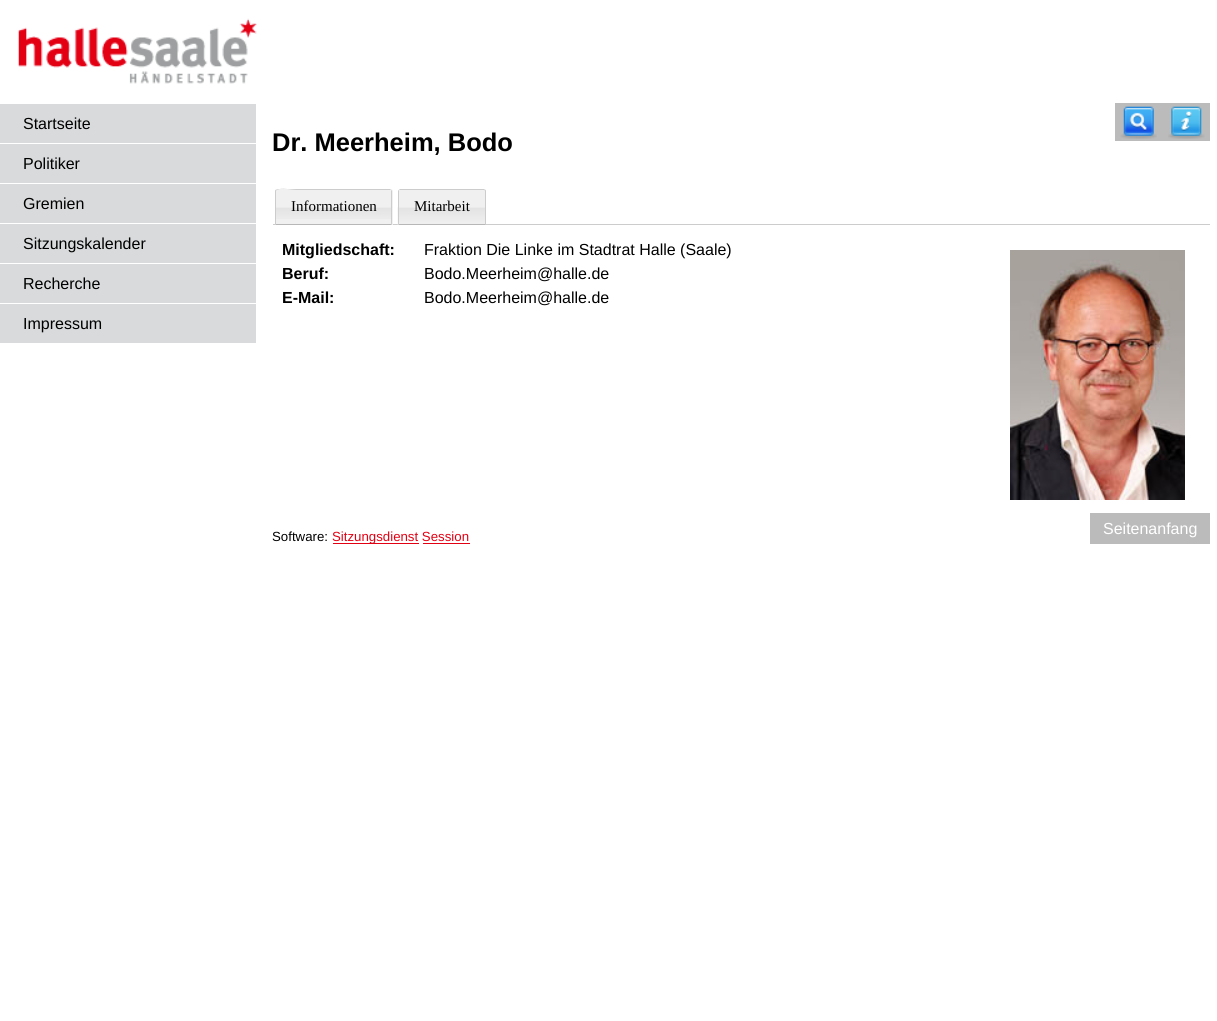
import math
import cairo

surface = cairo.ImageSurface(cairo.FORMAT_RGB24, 1217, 1021)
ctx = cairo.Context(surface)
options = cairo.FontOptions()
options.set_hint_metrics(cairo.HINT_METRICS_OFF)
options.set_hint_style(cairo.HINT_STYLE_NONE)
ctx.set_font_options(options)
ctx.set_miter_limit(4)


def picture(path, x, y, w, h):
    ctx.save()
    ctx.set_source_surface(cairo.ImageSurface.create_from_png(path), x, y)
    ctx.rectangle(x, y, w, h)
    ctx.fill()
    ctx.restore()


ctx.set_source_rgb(1, 1, 1)
ctx.paint()
picture("img1.png", 18, 18, 239, 66)
ctx.set_source_rgb(0.847, 0.855, 0.859)
ctx.rectangle(0, 104, 256, 39)
ctx.fill()
ctx.select_font_face("Liberation Sans")
ctx.set_font_size(16)
ctx.set_source_rgb(0, 0, 0)
ctx.move_to(23, 129)
ctx.show_text("Startseite")
ctx.set_source_rgb(0.847, 0.855, 0.859)
ctx.rectangle(0, 144, 256, 39)
ctx.fill()
ctx.set_source_rgb(0, 0, 0)
ctx.move_to(23, 169)
ctx.show_text("Politiker")
ctx.set_source_rgb(0.847, 0.855, 0.859)
ctx.rectangle(0, 184, 256, 39)
ctx.fill()
ctx.set_source_rgb(0, 0, 0)
ctx.move_to(23, 209)
ctx.show_text("Gremien")
ctx.set_source_rgb(0.847, 0.855, 0.859)
ctx.rectangle(0, 224, 256, 39)
ctx.fill()
ctx.set_source_rgb(0, 0, 0)
ctx.move_to(23, 249)
ctx.show_text("Sitzungskalender")
ctx.set_source_rgb(0.847, 0.855, 0.859)
ctx.rectangle(0, 264, 256, 39)
ctx.fill()
ctx.set_source_rgb(0, 0, 0)
ctx.move_to(23, 289)
ctx.show_text("Recherche")
ctx.set_source_rgb(0.847, 0.855, 0.859)
ctx.rectangle(0, 304, 256, 39)
ctx.fill()
ctx.set_source_rgb(0, 0, 0)
ctx.move_to(23, 329)
ctx.show_text("Impressum")
ctx.set_source_rgb(0.733, 0.733, 0.733)
ctx.rectangle(1115, 103, 95, 38)
ctx.fill()
picture("img2.png", 1120, 106, 37, 33)
picture("img3.png", 1168, 106, 37, 33)
ctx.select_font_face("Liberation Sans", cairo.FONT_SLANT_NORMAL, cairo.FONT_WEIGHT_BOLD)
ctx.set_font_size(25.5)
ctx.set_source_rgb(0, 0, 0)
ctx.move_to(272, 151)
ctx.show_text("Dr. Meerheim, Bodo")
ctx.set_source_rgb(0.8, 0.8, 0.8)
ctx.rectangle(273, 224, 937, 1)
ctx.fill()
ctx.set_source_rgb(0.941, 0.941, 0.941)
ctx.new_path()
ctx.move_to(277.5, 189)
ctx.line_to(390.5, 189)
ctx.curve_to(392, 189, 393, 190, 393, 191.5)
ctx.line_to(393, 225)
ctx.line_to(275, 225)
ctx.line_to(275, 191.5)
ctx.curve_to(275, 190, 276, 189, 277.5, 189)
ctx.close_path()
ctx.fill()
picture("img4.png", 276, 207, 115, 12)
ctx.set_source_rgb(0.8, 0.8, 0.8)
ctx.new_path()
ctx.move_to(278, 189)
ctx.line_to(276, 190)
ctx.line_to(277, 190)
ctx.curve_to(282, 187, 290, 190, 297, 190)
ctx.line_to(390, 190)
ctx.line_to(391, 190)
ctx.line_to(390, 189)
ctx.close_path()
ctx.fill()
ctx.new_path()
ctx.move_to(392, 224.5)
ctx.line_to(392, 191)
ctx.line_to(391.5, 190)
ctx.line_to(391, 190.5)
ctx.line_to(391, 223.5)
ctx.close_path()
ctx.fill()
ctx.set_source_rgb(0.718, 0.718, 0.718)
ctx.new_path()
ctx.move_to(392, 225)
ctx.line_to(391, 224)
ctx.line_to(276, 224)
ctx.line_to(275, 225)
ctx.close_path()
ctx.fill()
ctx.set_source_rgb(0.8, 0.8, 0.8)
ctx.new_path()
ctx.move_to(275, 225)
ctx.line_to(276, 224)
ctx.line_to(276, 191)
ctx.line_to(276.5, 190.5)
ctx.line_to(276, 189.5)
ctx.curve_to(275.5, 190, 275, 190.5, 275, 191)
ctx.close_path()
ctx.fill()
ctx.select_font_face("Liberation Serif")
ctx.set_font_size(15)
ctx.set_source_rgb(0, 0, 0)
ctx.move_to(291, 211)
ctx.show_text("Informationen")
ctx.set_source_rgb(0.941, 0.941, 0.941)
ctx.new_path()
ctx.move_to(400.5, 189)
ctx.line_to(483.5, 189)
ctx.curve_to(485, 189, 486, 190, 486, 191.5)
ctx.line_to(486, 225)
ctx.line_to(398, 225)
ctx.line_to(398, 191.5)
ctx.curve_to(398, 190, 399, 189, 400.5, 189)
ctx.close_path()
ctx.fill()
picture("img5.png", 397, 207, 89, 18)
ctx.set_source_rgb(0.8, 0.8, 0.8)
ctx.new_path()
ctx.move_to(400, 189)
ctx.line_to(399, 190)
ctx.line_to(400, 190)
ctx.line_to(484, 190)
ctx.line_to(485, 190)
ctx.line_to(484, 189)
ctx.close_path()
ctx.fill()
ctx.new_path()
ctx.move_to(486, 225)
ctx.line_to(486, 191)
ctx.line_to(485.5, 189.5)
ctx.line_to(484.5, 190.5)
ctx.line_to(485, 191)
ctx.line_to(485, 224)
ctx.close_path()
ctx.fill()
ctx.set_source_rgb(0.718, 0.718, 0.718)
ctx.new_path()
ctx.move_to(398, 225)
ctx.line_to(486, 225)
ctx.line_to(485, 224)
ctx.line_to(399, 224)
ctx.close_path()
ctx.fill()
ctx.set_source_rgb(0.8, 0.8, 0.8)
ctx.new_path()
ctx.move_to(398.5, 190)
ctx.line_to(398, 191)
ctx.line_to(398, 224.5)
ctx.line_to(399, 223.5)
ctx.line_to(399, 190.5)
ctx.close_path()
ctx.fill()
ctx.set_source_rgb(0, 0, 0)
ctx.move_to(414, 211)
ctx.show_text("Mitarbeit")
ctx.select_font_face("Liberation Sans", cairo.FONT_SLANT_NORMAL, cairo.FONT_WEIGHT_BOLD)
ctx.set_font_size(16)
ctx.move_to(282, 255)
ctx.show_text("Mitgliedschaft:")
ctx.select_font_face("Liberation Sans")
ctx.move_to(424, 255)
ctx.show_text("Fraktion Die Linke im Stadtrat Halle (Saale)")
ctx.select_font_face("Liberation Sans", cairo.FONT_SLANT_NORMAL, cairo.FONT_WEIGHT_BOLD)
ctx.move_to(282, 279)
ctx.show_text("Beruf:")
ctx.select_font_face("Liberation Sans")
ctx.move_to(424, 279)
ctx.show_text("Bodo.Meerheim@halle.de")
ctx.select_font_face("Liberation Sans", cairo.FONT_SLANT_NORMAL, cairo.FONT_WEIGHT_BOLD)
ctx.move_to(282, 303)
ctx.show_text("E-Mail:")
ctx.select_font_face("Liberation Sans")
ctx.move_to(424, 303)
ctx.show_text("Bodo.Meerheim@halle.de")
picture("img6.png", 1010, 250, 175, 250)
ctx.set_font_size(13.25)
ctx.move_to(272, 541)
ctx.show_text("Software:")
ctx.set_source_rgb(0.89, 0, 0.075)
ctx.rectangle(333, 543, 86, 1)
ctx.fill()
ctx.move_to(332, 541)
ctx.show_text("Sitzungsdienst Session")
ctx.rectangle(423, 543, 47, 1)
ctx.fill()
ctx.set_source_rgb(0.733, 0.733, 0.733)
ctx.rectangle(1090, 513, 120, 31)
ctx.fill()
ctx.set_font_size(16)
ctx.set_source_rgb(1, 1, 1)
ctx.move_to(1103, 534)
ctx.show_text("Seitenanfang")
surface.write_to_png("page.png")
